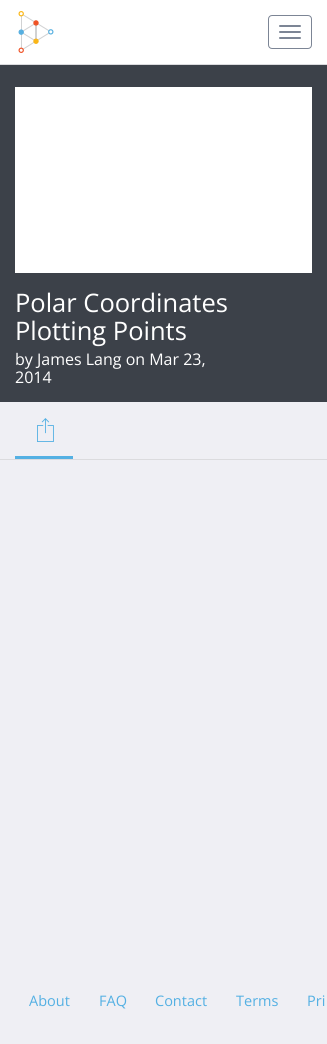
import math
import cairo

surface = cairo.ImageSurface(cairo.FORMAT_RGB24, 327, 1044)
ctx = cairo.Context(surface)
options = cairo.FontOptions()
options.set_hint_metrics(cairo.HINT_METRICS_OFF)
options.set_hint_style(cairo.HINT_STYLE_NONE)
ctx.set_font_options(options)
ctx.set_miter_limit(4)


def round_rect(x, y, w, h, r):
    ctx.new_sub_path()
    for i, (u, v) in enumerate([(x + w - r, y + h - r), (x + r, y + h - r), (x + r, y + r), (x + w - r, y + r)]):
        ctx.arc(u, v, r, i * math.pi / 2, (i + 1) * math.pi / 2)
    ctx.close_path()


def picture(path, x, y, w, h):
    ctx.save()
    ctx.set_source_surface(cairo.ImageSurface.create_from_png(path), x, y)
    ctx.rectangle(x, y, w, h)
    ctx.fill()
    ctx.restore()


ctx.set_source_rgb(0.937, 0.937, 0.957)
ctx.paint()
ctx.set_source_rgb(1, 1, 1)
ctx.rectangle(0, 0, 327, 64)
ctx.fill()
ctx.set_source_rgb(0.859, 0.859, 0.871)
ctx.rectangle(0, 64, 327, 1)
ctx.fill()
picture("img1.png", 18, 11, 36, 42)
round_rect(268.5, 15.5, 43, 33, 3.5)
ctx.set_source_rgb(0.486, 0.522, 0.584)
ctx.set_line_width(1)
ctx.stroke()
round_rect(279, 25, 22, 2, 1)
ctx.fill()
round_rect(279, 31, 22, 2, 1)
ctx.fill()
round_rect(279, 37, 22, 2, 1)
ctx.fill()
ctx.set_source_rgb(0.235, 0.255, 0.286)
ctx.rectangle(0, 65, 327, 337)
ctx.fill()
ctx.set_source_rgb(1, 1, 1)
ctx.rectangle(15, 87, 297, 186)
ctx.fill()
ctx.select_font_face("Open Sans")
ctx.set_font_size(25.5)
ctx.move_to(15, 312)
ctx.show_text("Polar Coordinates")
ctx.move_to(15, 340)
ctx.show_text("Plotting Points")
ctx.set_font_size(16)
ctx.move_to(15, 365)
ctx.show_text("by James Lang on Mar 23,")
ctx.move_to(15, 383)
ctx.show_text("2014")
ctx.set_source_rgb(0.859, 0.859, 0.871)
ctx.rectangle(0, 459, 327, 1)
ctx.fill()
ctx.set_source_rgb(0.329, 0.69, 0.89)
ctx.rectangle(15, 456, 58, 3)
ctx.fill()
picture("img2.png", 37, 418, 17, 24)
ctx.set_font_size(14.5)
ctx.move_to(29, 1006)
ctx.show_text("About")
ctx.move_to(99, 1006)
ctx.show_text("FAQ")
ctx.move_to(155, 1006)
ctx.show_text("Contact")
ctx.move_to(236, 1006)
ctx.show_text("Terms")
ctx.move_to(307, 1006)
ctx.show_text("Pri")
surface.write_to_png("page.png")
